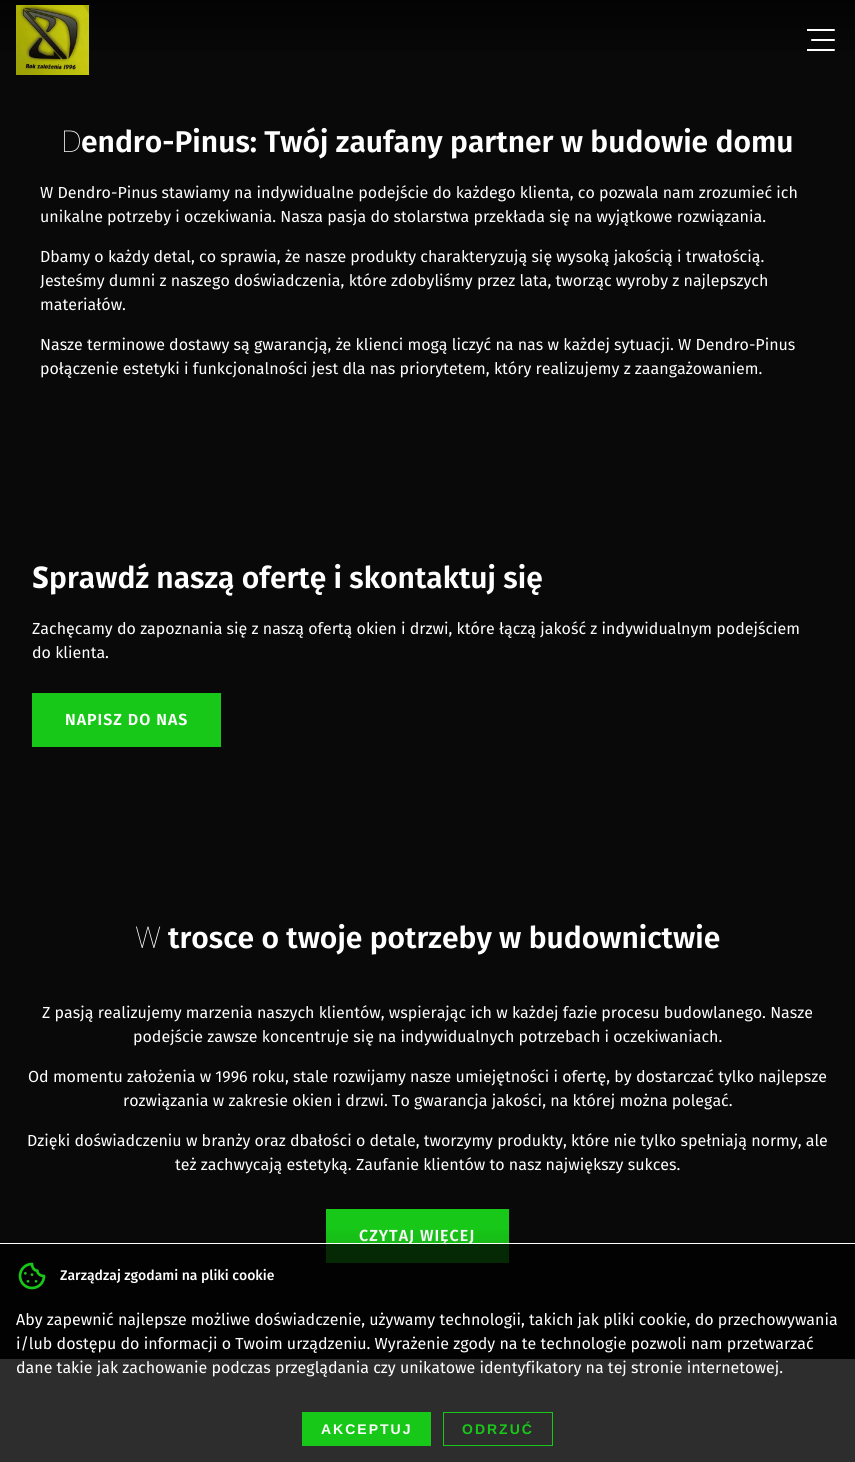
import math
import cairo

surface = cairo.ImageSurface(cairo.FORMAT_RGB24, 855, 1462)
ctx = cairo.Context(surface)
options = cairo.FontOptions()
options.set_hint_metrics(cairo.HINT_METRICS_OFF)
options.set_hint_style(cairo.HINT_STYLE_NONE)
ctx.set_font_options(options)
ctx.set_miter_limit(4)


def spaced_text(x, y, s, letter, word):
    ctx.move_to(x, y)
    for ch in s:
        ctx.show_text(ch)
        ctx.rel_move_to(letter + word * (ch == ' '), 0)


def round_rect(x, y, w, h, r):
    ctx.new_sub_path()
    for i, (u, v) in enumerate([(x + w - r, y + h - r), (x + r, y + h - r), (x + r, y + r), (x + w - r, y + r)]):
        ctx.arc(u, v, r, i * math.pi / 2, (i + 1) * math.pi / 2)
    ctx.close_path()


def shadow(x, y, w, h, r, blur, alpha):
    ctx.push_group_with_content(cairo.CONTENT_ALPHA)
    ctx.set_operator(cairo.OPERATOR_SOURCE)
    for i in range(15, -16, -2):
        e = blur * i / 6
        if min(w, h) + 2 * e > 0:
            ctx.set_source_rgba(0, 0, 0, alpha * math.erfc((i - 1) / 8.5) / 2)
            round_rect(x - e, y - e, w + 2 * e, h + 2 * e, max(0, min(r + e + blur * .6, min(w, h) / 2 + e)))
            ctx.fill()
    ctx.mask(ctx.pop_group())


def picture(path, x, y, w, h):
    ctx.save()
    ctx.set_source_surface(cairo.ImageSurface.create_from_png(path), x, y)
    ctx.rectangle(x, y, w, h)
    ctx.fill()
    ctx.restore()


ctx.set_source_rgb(0.039, 0.039, 0.039)
ctx.paint()
gradient = cairo.LinearGradient(428, 0, 428, 80)
gradient.add_color_stop_rgba(0, 0.012, 0.012, 0.012, 1)
gradient.add_color_stop_rgba(1, 0.039, 0.039, 0.039, 1)
ctx.set_source(gradient)
ctx.rectangle(0, 0, 855, 51)
ctx.fill()
picture("img1.png", 16, 5, 73, 70)
ctx.set_source_rgb(1, 1, 1)
round_rect(811, 39, 24, 2, 1)
ctx.fill()
ctx.new_path()
ctx.move_to(807, 29)
ctx.line_to(834, 29)
ctx.curve_to(834.5, 29, 835, 29.5, 835, 30)
ctx.curve_to(835, 30.5, 834.5, 31, 834, 31)
ctx.line_to(807, 31)
ctx.close_path()
ctx.fill()
ctx.new_path()
ctx.move_to(807, 49)
ctx.line_to(834, 49)
ctx.curve_to(834.5, 49, 835, 49.5, 835, 50)
ctx.curve_to(835, 50.5, 834.5, 51, 834, 51)
ctx.line_to(807, 51)
ctx.close_path()
ctx.fill()
ctx.select_font_face("Noto Sans Thin")
ctx.set_font_size(30)
ctx.move_to(61, 152)
ctx.show_text("D")
ctx.select_font_face("Fira Sans SemiBold")
ctx.move_to(81, 152)
ctx.show_text("endro-Pinus: Twój zaufany partner w budowie domu")
ctx.select_font_face("Fira Sans")
ctx.set_font_size(16)
ctx.move_to(40, 198)
ctx.show_text("W Dendro-Pinus stawiamy na indywidualne podejście do każdego klienta, co pozwala nam zrozumieć ich")
ctx.move_to(40, 222)
ctx.show_text("unikalne potrzeby i oczekiwania. Nasza pasja do stolarstwa przekłada się na wyjątkowe rozwiązania.")
ctx.move_to(40, 262)
ctx.show_text("Dbamy o każdy detal, co sprawia, że nasze produkty charakteryzują się wysoką jakością i trwałością.")
ctx.move_to(40, 286)
ctx.show_text("Jesteśmy dumni z naszego doświadczenia, które zdobyliśmy przez lata, tworząc wyroby z najlepszych")
ctx.move_to(40, 310)
ctx.show_text("materiałów.")
ctx.move_to(40, 350)
ctx.show_text("Nasze terminowe dostawy są gwarancją, że klienci mogą liczyć na nas w każdej sytuacji. W Dendro-Pinus")
ctx.move_to(40, 374)
ctx.show_text("połączenie estetyki i funkcjonalności jest dla nas priorytetem, który realizujemy z zaangażowaniem.")
ctx.select_font_face("Noto Sans ExtraBold")
ctx.set_font_size(30)
ctx.move_to(32, 588)
ctx.show_text("S")
ctx.select_font_face("Fira Sans SemiBold")
ctx.move_to(49, 588)
ctx.show_text("prawdź naszą ofertę i skontaktuj się")
ctx.select_font_face("Fira Sans")
ctx.set_font_size(16)
ctx.move_to(32, 634)
ctx.show_text("Zachęcamy do zapoznania się z naszą ofertą okien i drzwi, które łączą jakość z indywidualnym podejściem")
ctx.move_to(32, 658)
ctx.show_text("do klienta.")
ctx.set_source_rgb(0.094, 0.784, 0.094)
ctx.rectangle(32, 693, 189, 54)
ctx.fill()
ctx.select_font_face("Fira Sans SemiBold")
ctx.set_source_rgb(1, 1, 1)
spaced_text(65, 725, "NAPISZ DO NAS", 1, 0)
ctx.select_font_face("Noto Sans Thin")
ctx.set_font_size(30)
ctx.move_to(135, 948)
ctx.show_text("W")
ctx.select_font_face("Fira Sans SemiBold")
ctx.move_to(168, 948)
ctx.show_text("trosce o twoje potrzeby w budownictwie")
ctx.select_font_face("Fira Sans")
ctx.set_font_size(16)
ctx.move_to(42, 1018)
ctx.show_text("Z pasją realizujemy marzenia naszych klientów, wspierając ich w każdej fazie procesu budowlanego. Nasze")
ctx.move_to(133, 1042)
ctx.show_text("podejście zawsze koncentruje się na indywidualnych potrzebach i oczekiwaniach.")
ctx.move_to(28, 1082)
ctx.show_text("Od momentu założenia w 1996 roku, stale rozwijamy nasze umiejętności i ofertę, by dostarczać tylko najlepsze")
ctx.move_to(123, 1106)
ctx.show_text("rozwiązania w zakresie okien i drzwi. To gwarancja jakości, na której można polegać.")
ctx.move_to(27, 1146)
ctx.show_text("Dzięki doświadczeniu w branży oraz dbałości o detale, tworzymy produkty, które nie tylko spełniają normy, ale")
ctx.move_to(175, 1170)
ctx.show_text("też zachwycają estetyką. Zaufanie klientów to nasz największy sukces.")
ctx.set_source_rgb(0.094, 0.784, 0.094)
ctx.rectangle(326, 1209, 183, 54)
ctx.fill()
ctx.select_font_face("Fira Sans SemiBold")
ctx.set_source_rgb(1, 1, 1)
spaced_text(359, 1241, "CZYTAJ WIĘCEJ", 1, 0)
ctx.set_source_rgb(0.898, 0.89, 0.875)
ctx.rectangle(0, 1359, 855, 103)
ctx.fill()
ctx.save()
ctx.rectangle(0, 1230, 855, 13)
ctx.clip()
ctx.set_source_rgb(0, 0, 0)
shadow(0, 1247, 855, 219, 0, 15, 0.16)
ctx.restore()
ctx.set_source_rgba(0, 0, 0, 0.8)
ctx.rectangle(0, 1244, 855, 218)
ctx.fill()
ctx.set_source_rgb(1, 1, 1)
ctx.rectangle(0, 1243, 855, 1)
ctx.fill()
picture("img2.png", 18, 1262, 28, 28)
ctx.select_font_face("Fira Sans Medium")
ctx.set_font_size(14)
ctx.move_to(60, 1280)
ctx.show_text("Zarządzaj zgodami na pliki cookie")
ctx.select_font_face("Fira Sans")
ctx.set_font_size(16)
ctx.move_to(16, 1325)
ctx.show_text("Aby zapewnić najlepsze możliwe doświadczenie, używamy technologii, takich jak pliki cookie, do przechowywania")
ctx.move_to(16, 1349)
ctx.show_text("i/lub dostępu do informacji o Twoim urządzeniu. Wyrażenie zgody na te technologie pozwoli nam przetwarzać")
ctx.move_to(16, 1373)
ctx.show_text("dane takie jak zachowanie podczas przeglądania czy unikatowe identyfikatory na tej stronie internetowej.")
ctx.set_source_rgb(0.094, 0.784, 0.094)
ctx.rectangle(302, 1412, 129, 34)
ctx.fill()
ctx.select_font_face("Liberation Sans", cairo.FONT_SLANT_NORMAL, cairo.FONT_WEIGHT_BOLD)
ctx.set_font_size(14)
ctx.set_source_rgb(1, 1, 1)
spaced_text(321, 1434, "AKCEPTUJ", 2, 0)
ctx.rectangle(443.5, 1412.5, 109, 33)
ctx.set_source_rgb(0.094, 0.784, 0.094)
ctx.set_line_width(1)
ctx.stroke()
spaced_text(462, 1434, "ODRZUĆ", 2, 0)
surface.write_to_png("page.png")
